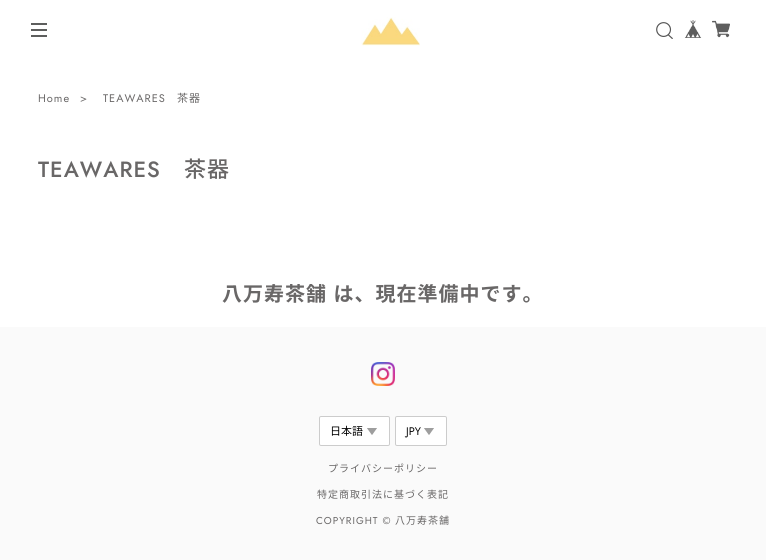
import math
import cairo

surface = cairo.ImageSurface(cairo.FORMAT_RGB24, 766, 560)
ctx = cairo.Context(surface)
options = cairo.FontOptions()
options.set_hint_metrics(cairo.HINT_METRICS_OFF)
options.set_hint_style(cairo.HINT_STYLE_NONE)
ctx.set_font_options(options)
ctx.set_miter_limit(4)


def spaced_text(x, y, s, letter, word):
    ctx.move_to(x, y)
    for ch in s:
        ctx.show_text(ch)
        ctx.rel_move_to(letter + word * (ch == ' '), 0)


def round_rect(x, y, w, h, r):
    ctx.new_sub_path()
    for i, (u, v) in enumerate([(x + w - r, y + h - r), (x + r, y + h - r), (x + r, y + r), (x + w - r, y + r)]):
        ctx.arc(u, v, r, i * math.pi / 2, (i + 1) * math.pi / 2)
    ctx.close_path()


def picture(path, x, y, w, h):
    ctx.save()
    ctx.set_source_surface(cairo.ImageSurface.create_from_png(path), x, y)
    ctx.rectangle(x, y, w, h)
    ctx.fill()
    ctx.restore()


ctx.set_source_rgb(1, 1, 1)
ctx.paint()
ctx.set_source_rgb(0.365, 0.369, 0.365)
ctx.rectangle(31, 23, 16, 2)
ctx.fill()
ctx.rectangle(31, 29, 16, 2)
ctx.fill()
ctx.rectangle(31, 35, 16, 2)
ctx.fill()
picture("img1.png", 361, 17, 59, 29)
picture("img2.png", 656, 22, 17, 17)
picture("img3.png", 684, 20, 18, 18)
picture("img4.png", 712, 20, 18, 18)
ctx.select_font_face("Jost")
ctx.set_font_size(11)
ctx.set_source_rgb(0.412, 0.404, 0.404)
spaced_text(38, 102, "Home", 1, 0)
spaced_text(80, 102, ">", 1, 0)
spaced_text(103, 102, "TEAWARES", 1, 0)
ctx.select_font_face("Noto Sans JP")
spaced_text(177, 102, "茶器", 1, 0)
ctx.select_font_face("Jost Medium")
ctx.set_font_size(22)
spaced_text(38, 177, "TEAWARES", 1, 0)
ctx.select_font_face("Noto Sans JP Medium")
spaced_text(184, 177, "茶器", 1, 0)
ctx.select_font_face("Noto Sans JP", cairo.FONT_SLANT_NORMAL, cairo.FONT_WEIGHT_BOLD)
ctx.set_font_size(20)
spaced_text(222, 301, "八万寿茶舗 は、現在準備中です。", 1, 1)
ctx.set_source_rgb(0.98, 0.98, 0.98)
ctx.rectangle(0, 327, 766, 233)
ctx.fill()
picture("img5.png", 371, 362, 24, 24)
ctx.set_source_rgb(1, 1, 1)
round_rect(319.5, 416.5, 70, 29, 1.5)
ctx.fill_preserve()
ctx.set_source_rgb(0.8, 0.8, 0.8)
ctx.set_line_width(1)
ctx.stroke()
ctx.select_font_face("Noto Sans JP")
ctx.set_font_size(11)
ctx.set_source_rgb(0, 0, 0)
ctx.move_to(330, 435)
ctx.show_text("日本語")
picture("img6.png", 367, 428, 10, 7)
ctx.set_source_rgb(1, 1, 1)
round_rect(395.5, 416.5, 51, 29, 1.5)
ctx.fill_preserve()
ctx.set_source_rgb(0.8, 0.8, 0.8)
ctx.stroke()
ctx.select_font_face("Jost")
ctx.set_source_rgb(0, 0, 0)
ctx.move_to(406, 435)
ctx.show_text("JPY")
picture("img6.png", 424, 428, 10, 7)
ctx.select_font_face("Noto Sans JP")
ctx.set_font_size(10)
ctx.set_source_rgb(0.412, 0.404, 0.404)
spaced_text(328, 472, "プライバシーポリシー", 1, 0)
spaced_text(317, 498, "特定商取引法に基づく表記", 1, 0)
ctx.select_font_face("Jost")
spaced_text(316, 524, "COPYRIGHT ©", 1, 0)
ctx.select_font_face("Noto Sans JP")
spaced_text(395, 524, "八万寿茶舗", 1, 0)
surface.write_to_png("page.png")
